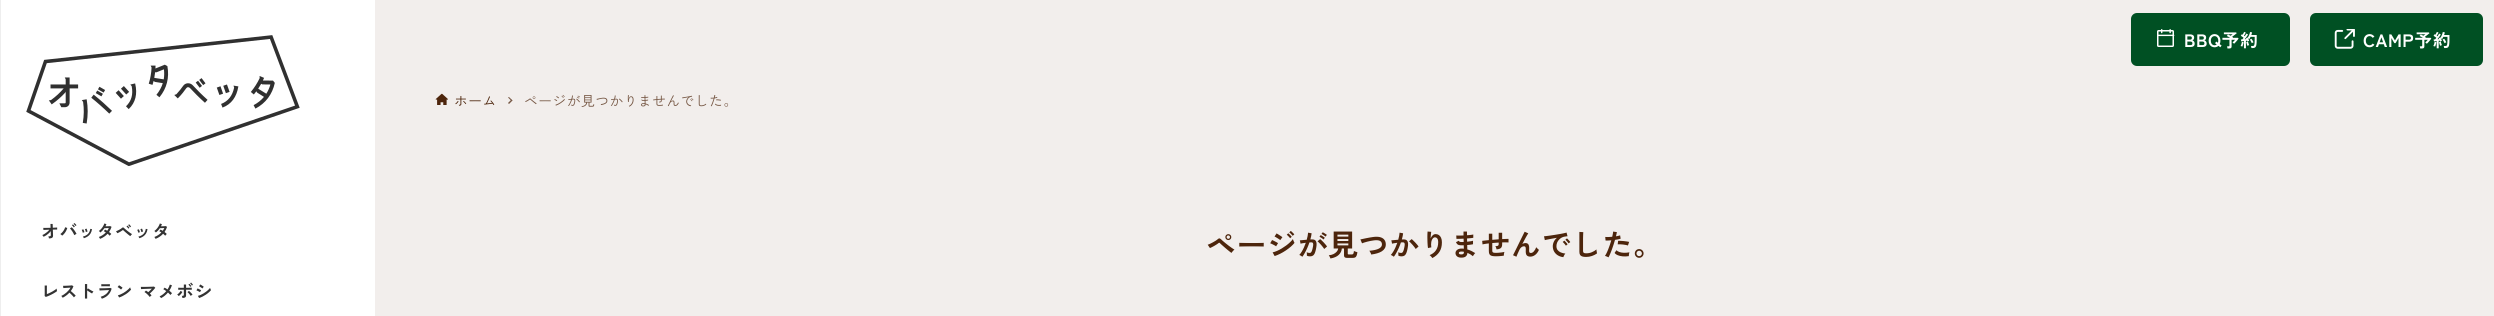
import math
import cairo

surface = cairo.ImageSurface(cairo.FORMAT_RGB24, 2494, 316)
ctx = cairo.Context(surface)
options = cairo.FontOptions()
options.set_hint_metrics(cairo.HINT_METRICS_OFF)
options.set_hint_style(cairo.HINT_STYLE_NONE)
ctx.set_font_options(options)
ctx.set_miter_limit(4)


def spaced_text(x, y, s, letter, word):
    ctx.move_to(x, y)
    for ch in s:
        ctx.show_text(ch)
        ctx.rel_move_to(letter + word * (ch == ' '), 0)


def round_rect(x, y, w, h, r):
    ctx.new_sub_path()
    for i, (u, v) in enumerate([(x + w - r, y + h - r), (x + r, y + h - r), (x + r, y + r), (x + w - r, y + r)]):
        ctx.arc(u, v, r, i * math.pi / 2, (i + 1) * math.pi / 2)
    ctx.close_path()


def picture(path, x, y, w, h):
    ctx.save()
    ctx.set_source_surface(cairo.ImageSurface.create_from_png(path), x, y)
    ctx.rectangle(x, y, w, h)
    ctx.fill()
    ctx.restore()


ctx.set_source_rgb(1, 1, 1)
ctx.paint()
ctx.set_source_rgb(0.949, 0.933, 0.925)
ctx.rectangle(375, 0, 2119, 316)
ctx.fill()
ctx.set_source_rgb(0, 0.314, 0.137)
round_rect(2131, 13, 159, 53, 6)
ctx.fill()
picture("img1.png", 2157, 29, 18, 18)
ctx.select_font_face("Zen Kaku Gothic New", cairo.FONT_SLANT_NORMAL, cairo.FONT_WEIGHT_BOLD)
ctx.set_font_size(18)
ctx.set_source_rgb(1, 1, 1)
spaced_text(2184, 47, "BBQ予約", 0.5, 0)
ctx.set_source_rgb(0, 0.314, 0.137)
round_rect(2310, 13, 173, 53, 6)
ctx.fill()
picture("img2.png", 2334, 29, 21, 20)
ctx.set_source_rgb(1, 1, 1)
spaced_text(2363, 47, "CAMP予約", 0.5, 0)
ctx.set_source_rgb(0.933, 0.933, 0.933)
ctx.rectangle(0, 0, 1, 316)
ctx.fill()
picture("img3.png", 26, 35, 274, 131)
ctx.set_source_rgb(0.2, 0.2, 0.2)
spaced_text(41, 238, "オバッタベッタ", 0.5, 0)
spaced_text(41, 298, "レストラン マメボシ", 0.5, 0)
picture("img4.png", 435, 93, 13, 12)
ctx.select_font_face("Zen Kaku Gothic New")
ctx.set_font_size(13.75)
ctx.set_source_rgb(0.302, 0.145, 0.047)
spaced_text(454, 106, "ホーム", 0.5, 0)
ctx.set_source_rgb(0.463, 0.341, 0.267)
ctx.new_path()
ctx.move_to(509, 97)
ctx.line_to(512.5, 100.5)
ctx.line_to(511.5, 101)
ctx.line_to(508, 97.5)
ctx.close_path()
ctx.fill()
ctx.new_path()
ctx.move_to(511.5, 99.5)
ctx.line_to(512.5, 100.5)
ctx.line_to(509, 104)
ctx.line_to(508, 103)
ctx.close_path()
ctx.fill()
spaced_text(524, 106, "ページが見つかりませんでした。", 0.5, 0)
ctx.select_font_face("Zen Kaku Gothic New", cairo.FONT_SLANT_NORMAL, cairo.FONT_WEIGHT_BOLD)
ctx.set_font_size(30)
ctx.set_source_rgb(0.302, 0.145, 0.047)
spaced_text(1206, 256, "ページが見つかりませんでした。", 0.5, 0)
surface.write_to_png("page.png")
